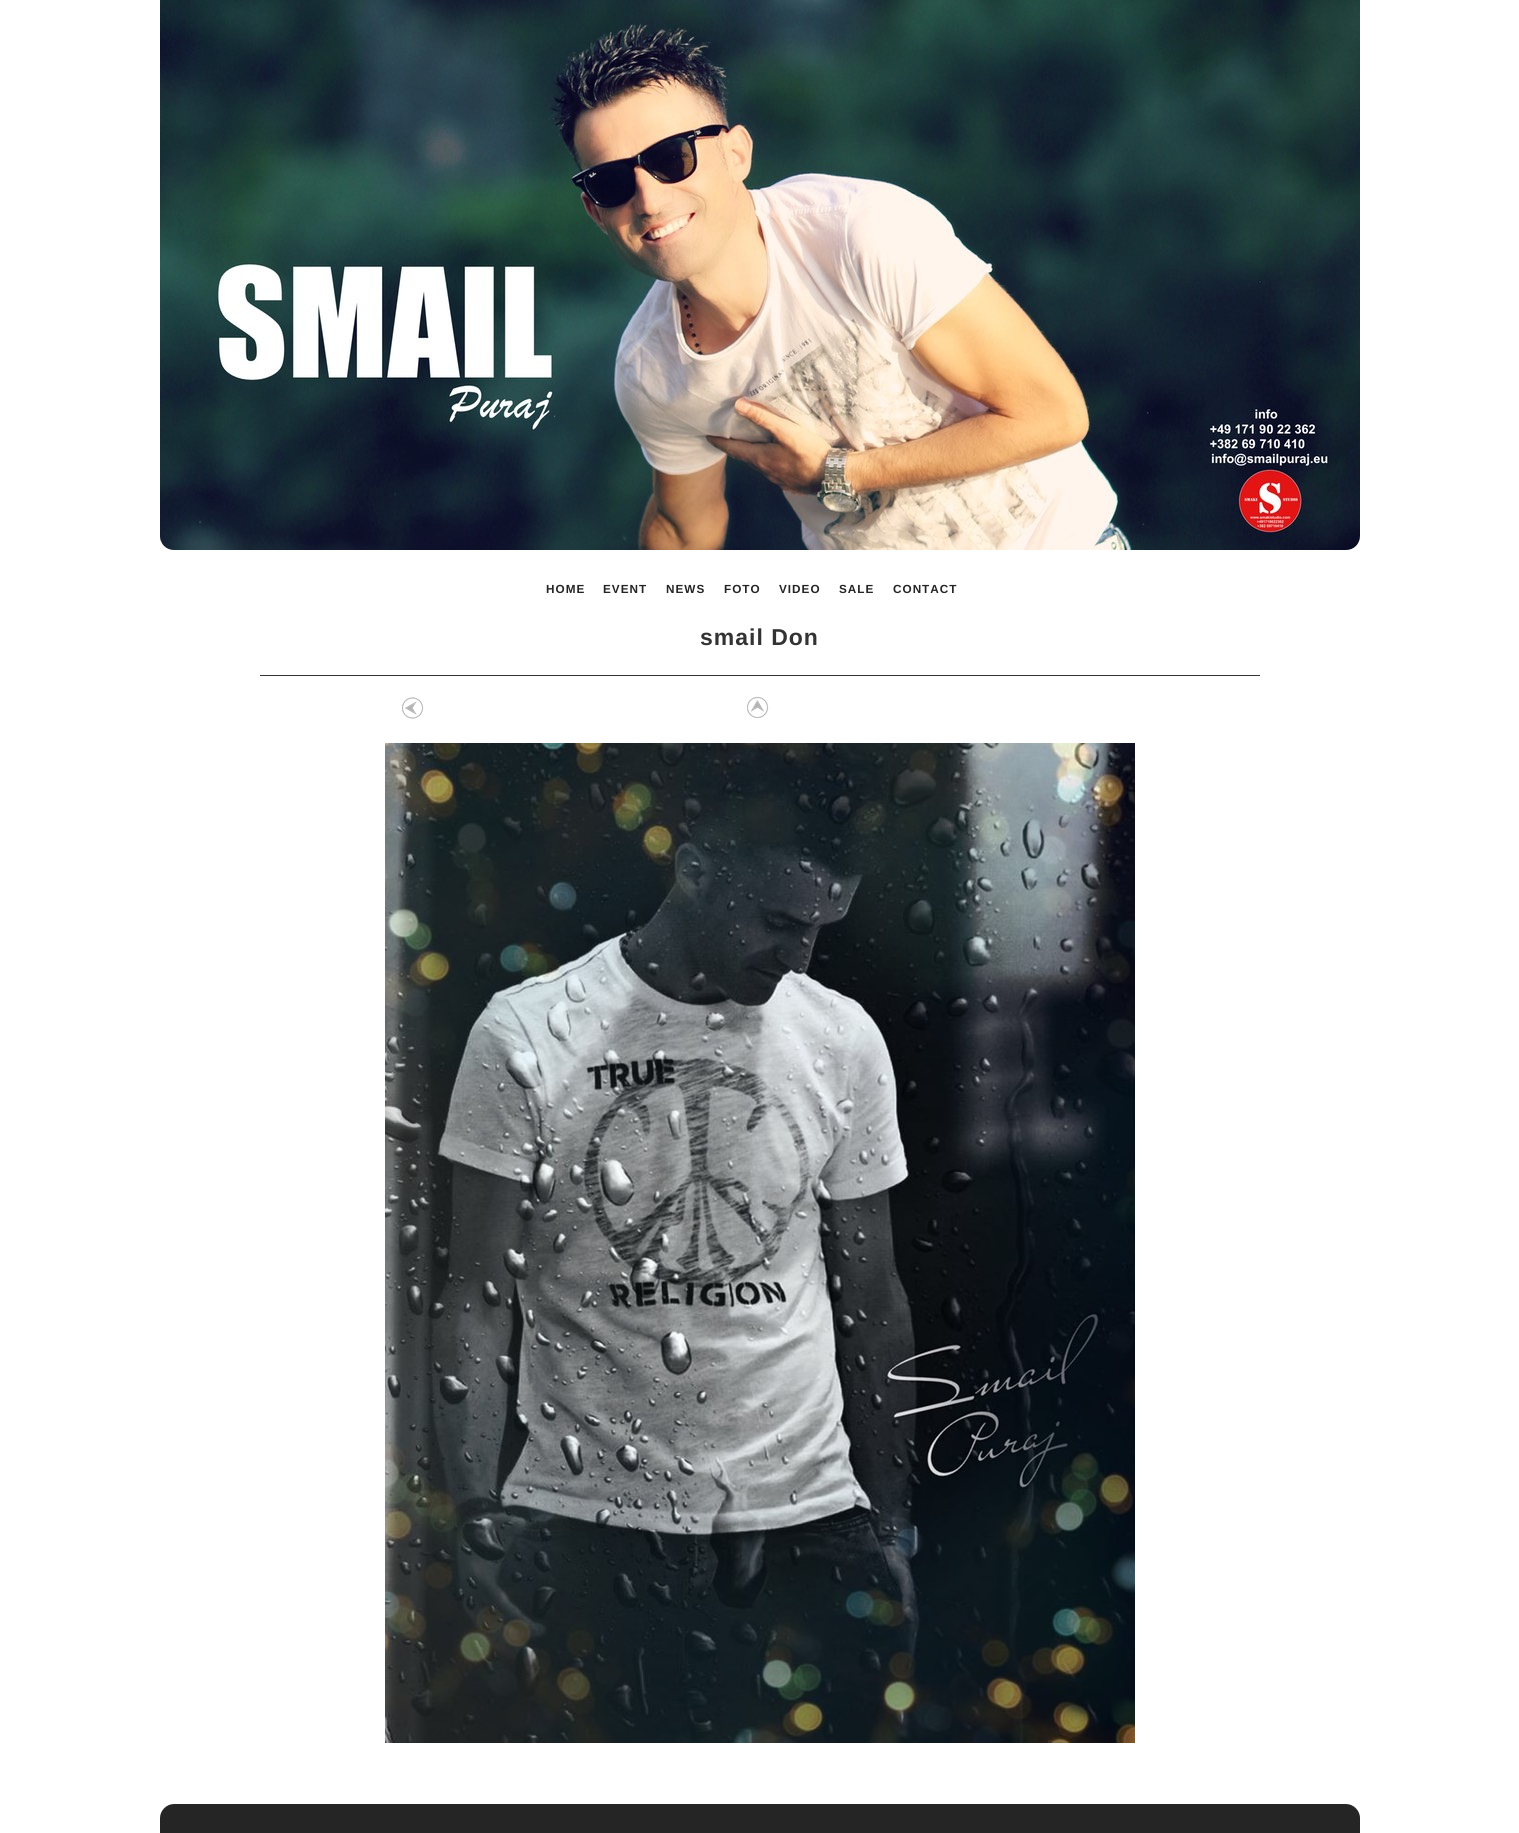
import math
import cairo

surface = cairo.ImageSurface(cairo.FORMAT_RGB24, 1519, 1833)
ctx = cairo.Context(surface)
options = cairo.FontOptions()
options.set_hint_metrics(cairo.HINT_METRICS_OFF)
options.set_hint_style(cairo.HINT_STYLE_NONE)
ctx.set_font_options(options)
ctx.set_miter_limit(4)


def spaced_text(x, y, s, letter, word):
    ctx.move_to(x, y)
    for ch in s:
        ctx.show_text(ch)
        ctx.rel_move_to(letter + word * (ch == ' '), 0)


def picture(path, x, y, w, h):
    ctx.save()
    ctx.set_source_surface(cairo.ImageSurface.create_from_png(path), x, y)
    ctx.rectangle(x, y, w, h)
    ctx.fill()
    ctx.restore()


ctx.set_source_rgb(1, 1, 1)
ctx.paint()
picture("img1.png", 160, 0, 1200, 550)
ctx.select_font_face("Liberation Sans", cairo.FONT_SLANT_NORMAL, cairo.FONT_WEIGHT_BOLD)
ctx.set_font_size(11.75)
ctx.set_source_rgb(0.145, 0.145, 0.145)
spaced_text(546, 593, "HOME", 1, 0)
spaced_text(603, 593, "EVENT", 1, 0)
spaced_text(666, 593, "NEWS", 1, 0)
spaced_text(724, 593, "FOTO", 1, 0)
spaced_text(779, 593, "VIDEO", 1, 0)
spaced_text(839, 593, "SALE", 1, 0)
spaced_text(893, 593, "CONTACT", 1, 0)
ctx.set_source_rgb(0.2, 0.2, 0.2)
ctx.rectangle(260, 675, 1000, 1)
ctx.fill()
ctx.set_font_size(23)
spaced_text(700, 645, "smail Don", 1, 0)
picture("img2.png", 402, 697, 22, 22)
picture("img3.png", 746, 696, 23, 23)
picture("img4.png", 385, 743, 750, 1000)
ctx.set_source_rgb(0.145, 0.145, 0.145)
ctx.new_path()
ctx.move_to(174, 1804)
ctx.line_to(1346, 1804)
ctx.curve_to(1353.5, 1804, 1360, 1810.5, 1360, 1818)
ctx.line_to(1360, 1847)
ctx.line_to(160, 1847)
ctx.line_to(160, 1818)
ctx.curve_to(160, 1810.5, 166.5, 1804, 174, 1804)
ctx.close_path()
ctx.fill()
surface.write_to_png("page.png")
